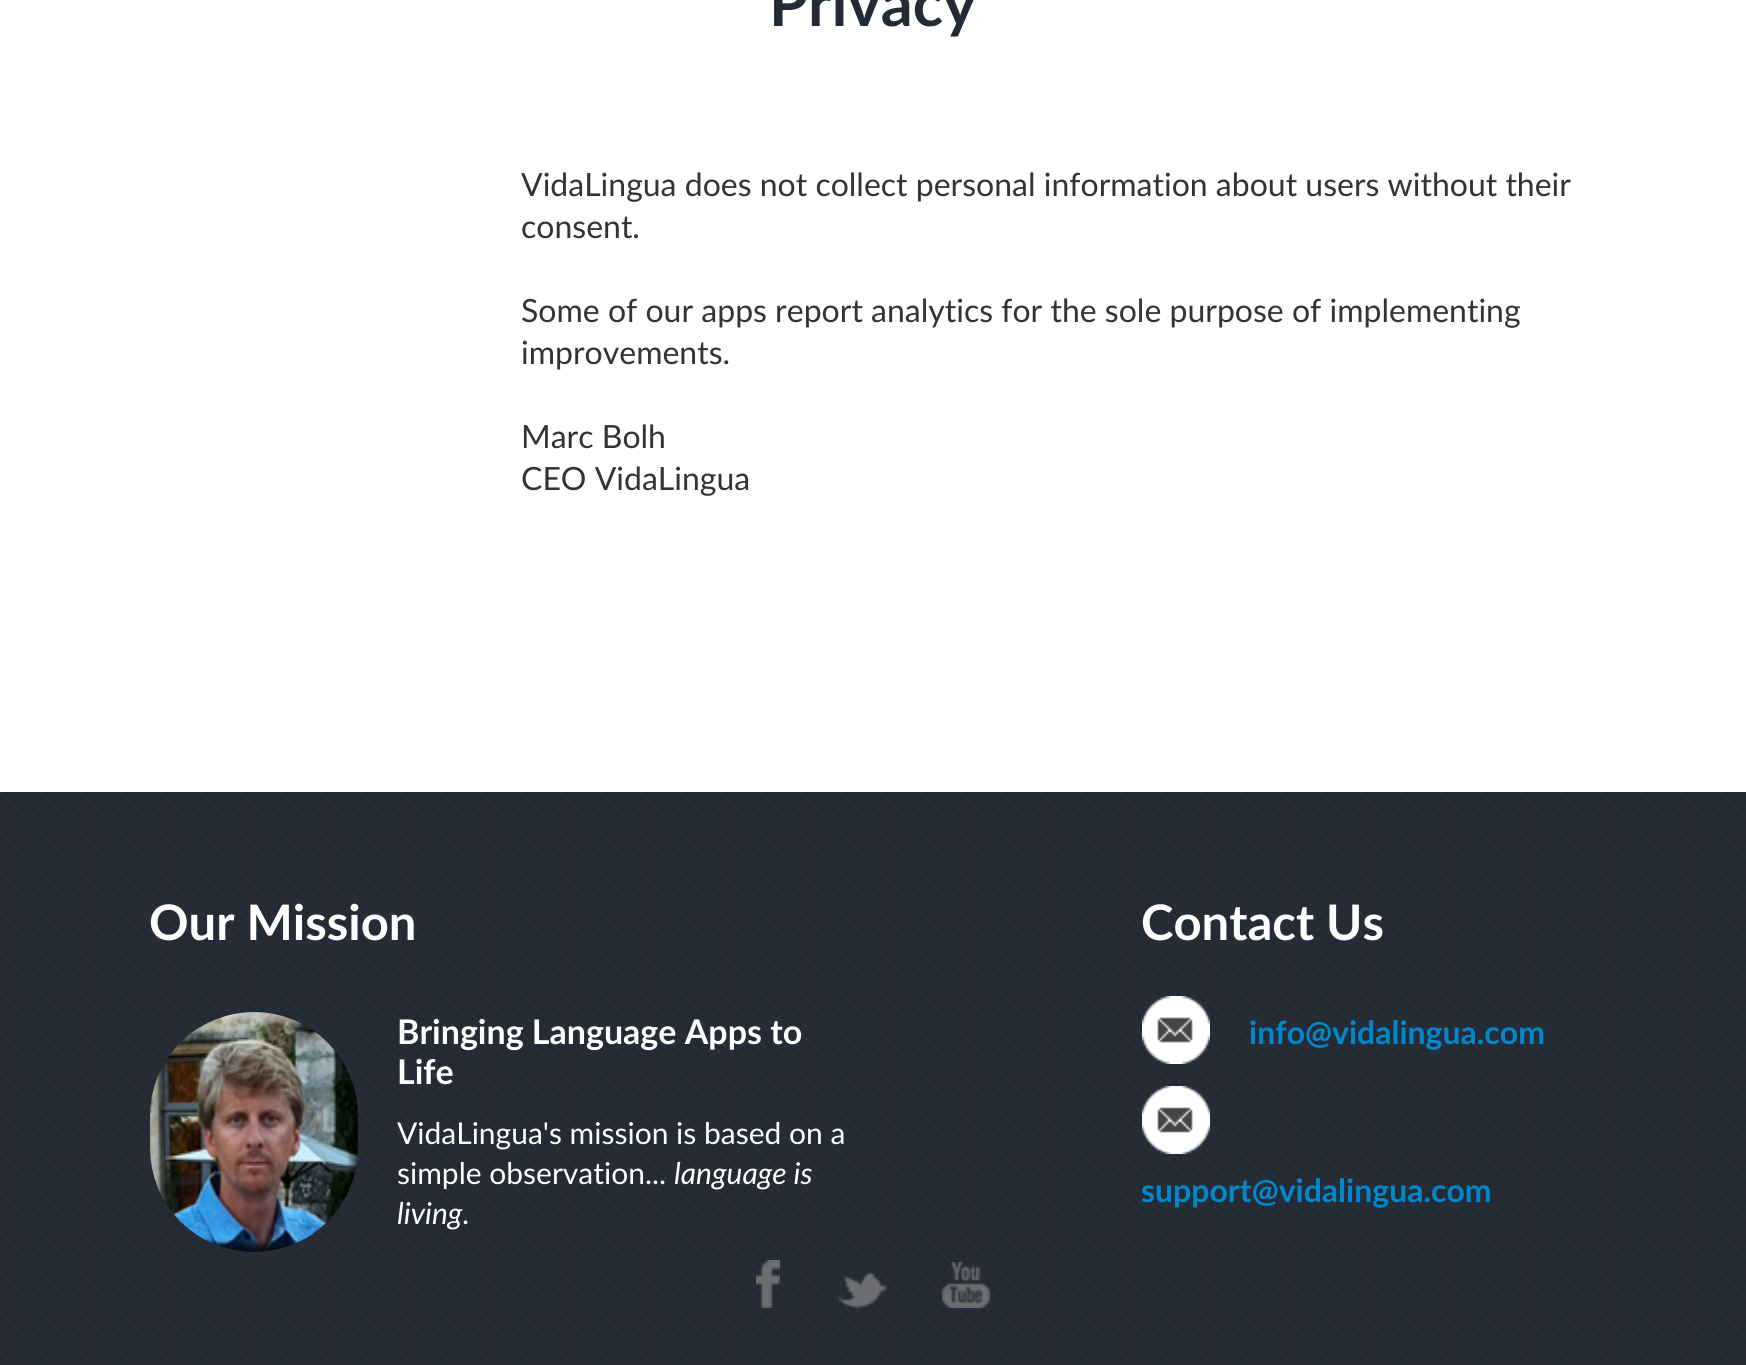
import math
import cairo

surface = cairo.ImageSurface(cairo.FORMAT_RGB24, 1746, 1365)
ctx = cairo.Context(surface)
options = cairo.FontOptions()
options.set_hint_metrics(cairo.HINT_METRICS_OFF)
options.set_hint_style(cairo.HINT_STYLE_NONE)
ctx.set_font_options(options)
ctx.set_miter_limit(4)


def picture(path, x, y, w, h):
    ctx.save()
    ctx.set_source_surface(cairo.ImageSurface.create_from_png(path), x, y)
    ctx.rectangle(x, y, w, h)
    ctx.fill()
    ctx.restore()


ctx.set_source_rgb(1, 1, 1)
ctx.paint()
ctx.select_font_face("Lato", cairo.FONT_SLANT_NORMAL, cairo.FONT_WEIGHT_BOLD)
ctx.set_font_size(63)
ctx.set_source_rgb(0.145, 0.169, 0.204)
ctx.move_to(769, 26)
ctx.show_text("Privacy")
ctx.select_font_face("Lato")
ctx.set_font_size(32)
ctx.set_source_rgb(0.2, 0.2, 0.2)
ctx.move_to(521, 196)
ctx.show_text("VidaLingua does not collect personal information about users without their")
ctx.move_to(521, 238)
ctx.show_text("consent.")
ctx.move_to(521, 322)
ctx.show_text("Some of our apps report analytics for the sole purpose of implementing")
ctx.move_to(521, 364)
ctx.show_text("improvements.")
ctx.move_to(521, 448)
ctx.show_text("Marc Bolh")
ctx.move_to(521, 490)
ctx.show_text("CEO VidaLingua")
picture("img1.png", 0, 792, 1746, 573)
ctx.select_font_face("Lato", cairo.FONT_SLANT_NORMAL, cairo.FONT_WEIGHT_BOLD)
ctx.set_font_size(49)
ctx.set_source_rgb(1, 1, 1)
ctx.move_to(149, 940)
ctx.show_text("Our Mission")
picture("img2.png", 150, 1012, 208, 240)
ctx.set_font_size(34)
ctx.move_to(397, 1044)
ctx.show_text("Bringing Language Apps to")
ctx.move_to(397, 1084)
ctx.show_text("Life")
ctx.select_font_face("Lato")
ctx.set_font_size(30)
ctx.move_to(397, 1144)
ctx.show_text("VidaLingua's mission is based on a")
ctx.move_to(397, 1184)
ctx.show_text("simple observation...")
ctx.select_font_face("Lato", cairo.FONT_SLANT_ITALIC)
ctx.move_to(674, 1184)
ctx.show_text("language is")
ctx.move_to(397, 1224)
ctx.show_text("living")
ctx.select_font_face("Lato")
ctx.move_to(462, 1224)
ctx.show_text(".")
ctx.select_font_face("Lato", cairo.FONT_SLANT_NORMAL, cairo.FONT_WEIGHT_BOLD)
ctx.set_font_size(49)
ctx.move_to(1141, 940)
ctx.show_text("Contact Us")
picture("img3.png", 1142, 996, 68, 68)
ctx.set_font_size(32)
ctx.set_source_rgb(0, 0.533, 0.8)
ctx.move_to(1249, 1044)
ctx.show_text("info@vidalingua.com")
picture("img4.png", 1142, 1086, 68, 68)
ctx.move_to(1141, 1202)
ctx.show_text("support@vidalingua.com")
picture("img5.png", 756, 1260, 24, 48)
picture("img6.png", 838, 1272, 48, 36)
picture("img7.png", 942, 1262, 48, 46)
surface.write_to_png("page.png")
